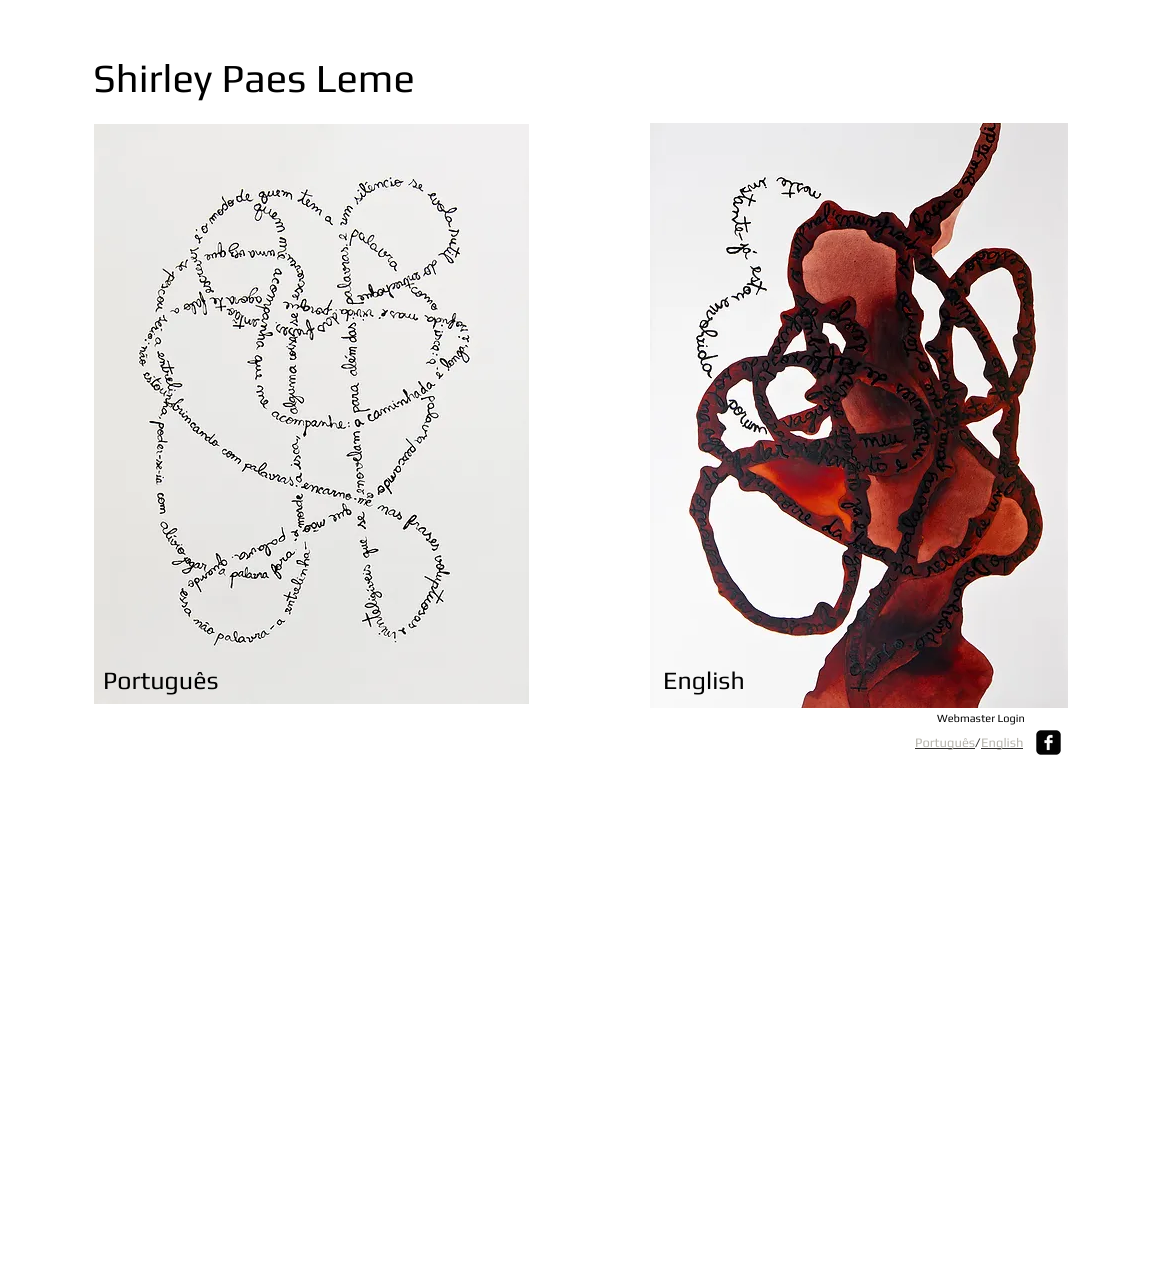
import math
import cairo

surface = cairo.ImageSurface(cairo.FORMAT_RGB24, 1166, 1285)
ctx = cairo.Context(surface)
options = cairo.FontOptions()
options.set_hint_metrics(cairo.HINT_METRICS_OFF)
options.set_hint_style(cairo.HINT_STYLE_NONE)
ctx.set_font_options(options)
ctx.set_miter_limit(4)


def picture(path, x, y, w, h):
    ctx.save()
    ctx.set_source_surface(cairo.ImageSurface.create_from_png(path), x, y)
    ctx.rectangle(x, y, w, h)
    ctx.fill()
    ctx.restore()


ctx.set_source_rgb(1, 1, 1)
ctx.paint()
ctx.select_font_face("Play")
ctx.set_font_size(40)
ctx.set_source_rgb(0, 0, 0)
ctx.move_to(93, 92)
ctx.show_text("Shirley Paes Leme")
picture("img1.png", 94, 124, 435, 580)
picture("img2.png", 650, 123, 418, 585)
ctx.set_font_size(25)
ctx.move_to(103, 689)
ctx.show_text("Português")
ctx.move_to(663, 689)
ctx.show_text("English")
ctx.set_font_size(11)
ctx.move_to(937, 722)
ctx.show_text("Webmaster Login")
ctx.set_source_rgb(0.188, 0.184, 0.18)
ctx.rectangle(915, 748, 60, 1)
ctx.fill()
ctx.set_font_size(13)
ctx.set_source_rgb(0.718, 0.71, 0.682)
ctx.move_to(915, 747)
ctx.show_text("Português")
ctx.set_source_rgb(0.188, 0.184, 0.18)
ctx.move_to(975, 747)
ctx.show_text("/")
ctx.rectangle(981, 748, 42, 1)
ctx.fill()
ctx.set_source_rgb(0.718, 0.71, 0.682)
ctx.move_to(981, 747)
ctx.show_text("English")
picture("img3.png", 1036, 730, 25, 25)
surface.write_to_png("page.png")
